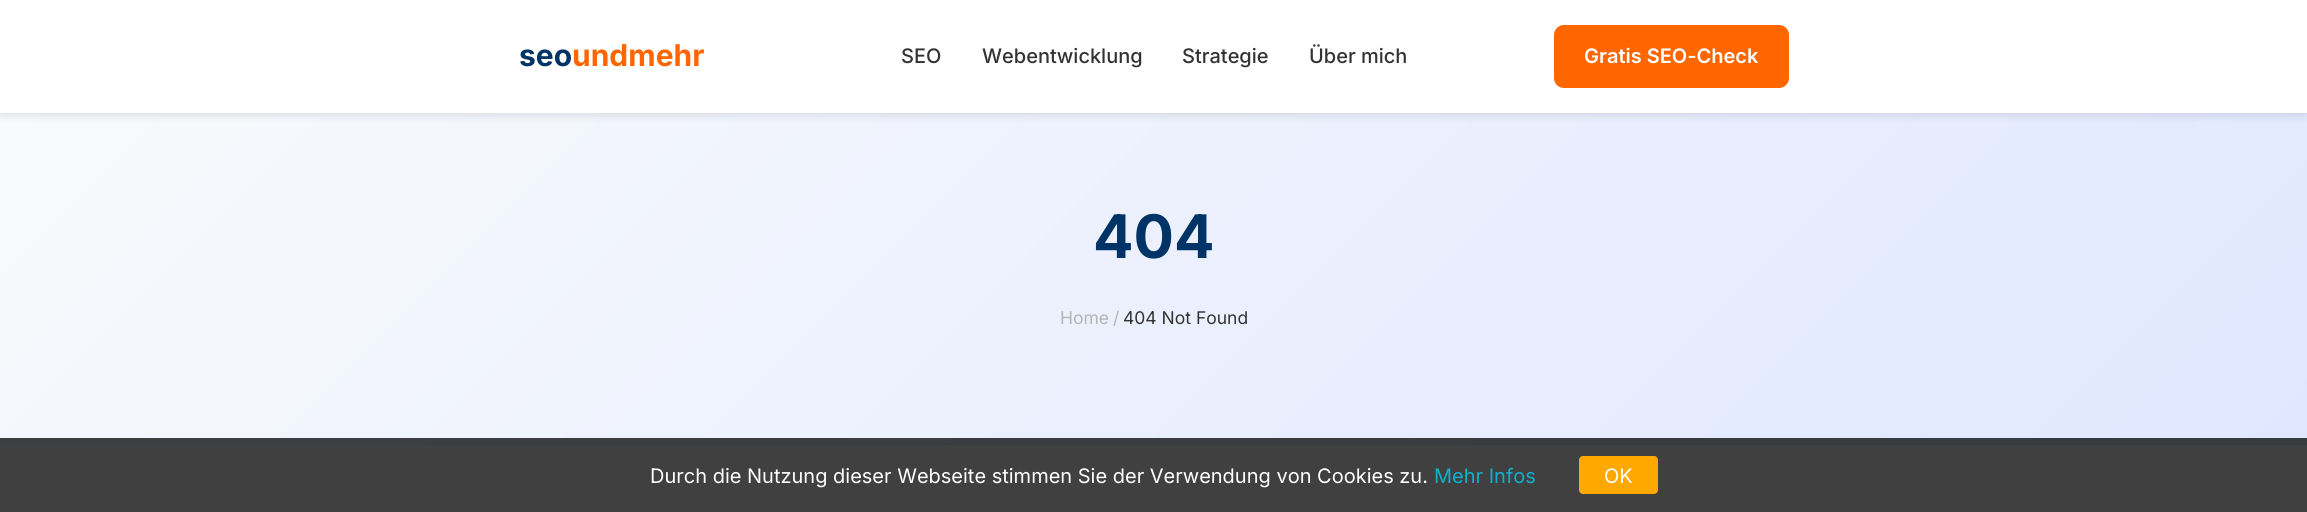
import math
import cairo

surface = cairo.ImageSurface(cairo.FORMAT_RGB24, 2307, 512)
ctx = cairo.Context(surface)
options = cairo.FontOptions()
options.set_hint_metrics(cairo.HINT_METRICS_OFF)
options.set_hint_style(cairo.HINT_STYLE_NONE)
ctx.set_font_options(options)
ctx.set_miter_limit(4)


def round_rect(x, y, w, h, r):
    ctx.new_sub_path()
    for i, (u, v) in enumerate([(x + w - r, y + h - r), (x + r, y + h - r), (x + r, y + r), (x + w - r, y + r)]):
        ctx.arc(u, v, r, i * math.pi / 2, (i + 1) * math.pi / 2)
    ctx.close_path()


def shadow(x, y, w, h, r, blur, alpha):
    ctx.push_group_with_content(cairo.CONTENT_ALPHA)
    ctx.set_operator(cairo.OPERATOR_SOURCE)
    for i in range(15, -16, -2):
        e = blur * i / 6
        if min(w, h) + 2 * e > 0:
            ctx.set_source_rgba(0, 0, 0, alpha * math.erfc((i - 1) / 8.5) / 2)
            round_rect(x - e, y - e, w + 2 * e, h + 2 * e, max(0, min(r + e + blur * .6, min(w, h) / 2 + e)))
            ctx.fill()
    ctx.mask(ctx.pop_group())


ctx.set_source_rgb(0.251, 0.251, 0.251)
ctx.paint()
gradient = cairo.LinearGradient(491, -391, 1817, 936)
gradient.add_color_stop_rgba(0, 0.973, 0.98, 0.988, 1)
gradient.add_color_stop_rgba(1, 0.878, 0.906, 1, 1)
ctx.set_source(gradient)
ctx.rectangle(0, 113, 2307, 325)
ctx.fill()
ctx.set_source_rgb(0, 0, 0)
shadow(1, 6, 2305, 110, 0, 4, 0.1)
ctx.set_source_rgb(1, 1, 1)
ctx.rectangle(0, 0, 2307, 113)
ctx.fill()
ctx.select_font_face("Inter", cairo.FONT_SLANT_NORMAL, cairo.FONT_WEIGHT_BOLD)
ctx.set_font_size(30)
ctx.set_source_rgb(0, 0.2, 0.4)
ctx.move_to(519, 66)
ctx.show_text("seo")
ctx.set_source_rgb(1, 0.4, 0)
ctx.move_to(572, 66)
ctx.show_text("undmehr")
ctx.select_font_face("Inter Medium")
ctx.set_font_size(20)
ctx.set_source_rgb(0.2, 0.2, 0.2)
ctx.move_to(901, 63)
ctx.show_text("SEO")
ctx.move_to(982, 63)
ctx.show_text("Webentwicklung")
ctx.move_to(1182, 63)
ctx.show_text("Strategie")
ctx.move_to(1309, 63)
ctx.show_text("Über mich")
ctx.set_source_rgb(1, 0.4, 0)
round_rect(1554, 25, 235, 63, 10)
ctx.fill()
ctx.select_font_face("Inter SemiBold")
ctx.set_source_rgb(1, 1, 1)
ctx.move_to(1584, 63)
ctx.show_text("Gratis SEO-Check")
gradient = cairo.LinearGradient(491, -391, 1817, 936)
gradient.add_color_stop_rgba(0, 0.243, 0.247, 0.247, 1)
gradient.add_color_stop_rgba(1, 0.22, 0.227, 0.251, 1)
ctx.set_source(gradient)
ctx.rectangle(0, 438, 2307, 7)
ctx.fill()
ctx.select_font_face("Inter", cairo.FONT_SLANT_NORMAL, cairo.FONT_WEIGHT_BOLD)
ctx.set_font_size(60)
ctx.set_source_rgb(0, 0.2, 0.4)
ctx.move_to(1093, 258)
ctx.show_text("404")
ctx.select_font_face("Inter")
ctx.set_font_size(17.5)
ctx.set_source_rgb(0.71, 0.71, 0.71)
ctx.move_to(1060, 324)
ctx.show_text("Home")
ctx.move_to(1113, 324)
ctx.show_text("/")
ctx.set_source_rgb(0.2, 0.2, 0.2)
ctx.move_to(1123, 324)
ctx.show_text("404 Not Found")
ctx.set_font_size(20)
ctx.set_source_rgb(1, 1, 1)
ctx.move_to(650, 483)
ctx.show_text("Durch die Nutzung dieser Webseite stimmen Sie der Verwendung von Cookies zu.")
ctx.set_source_rgb(0.051, 0.694, 0.804)
ctx.move_to(1434, 483)
ctx.show_text("Mehr Infos")
ctx.set_source_rgb(1, 0.659, 0)
round_rect(1579, 456, 79, 38, 4)
ctx.fill()
ctx.set_source_rgb(1, 1, 1)
ctx.move_to(1604, 483)
ctx.show_text("OK")
surface.write_to_png("page.png")
